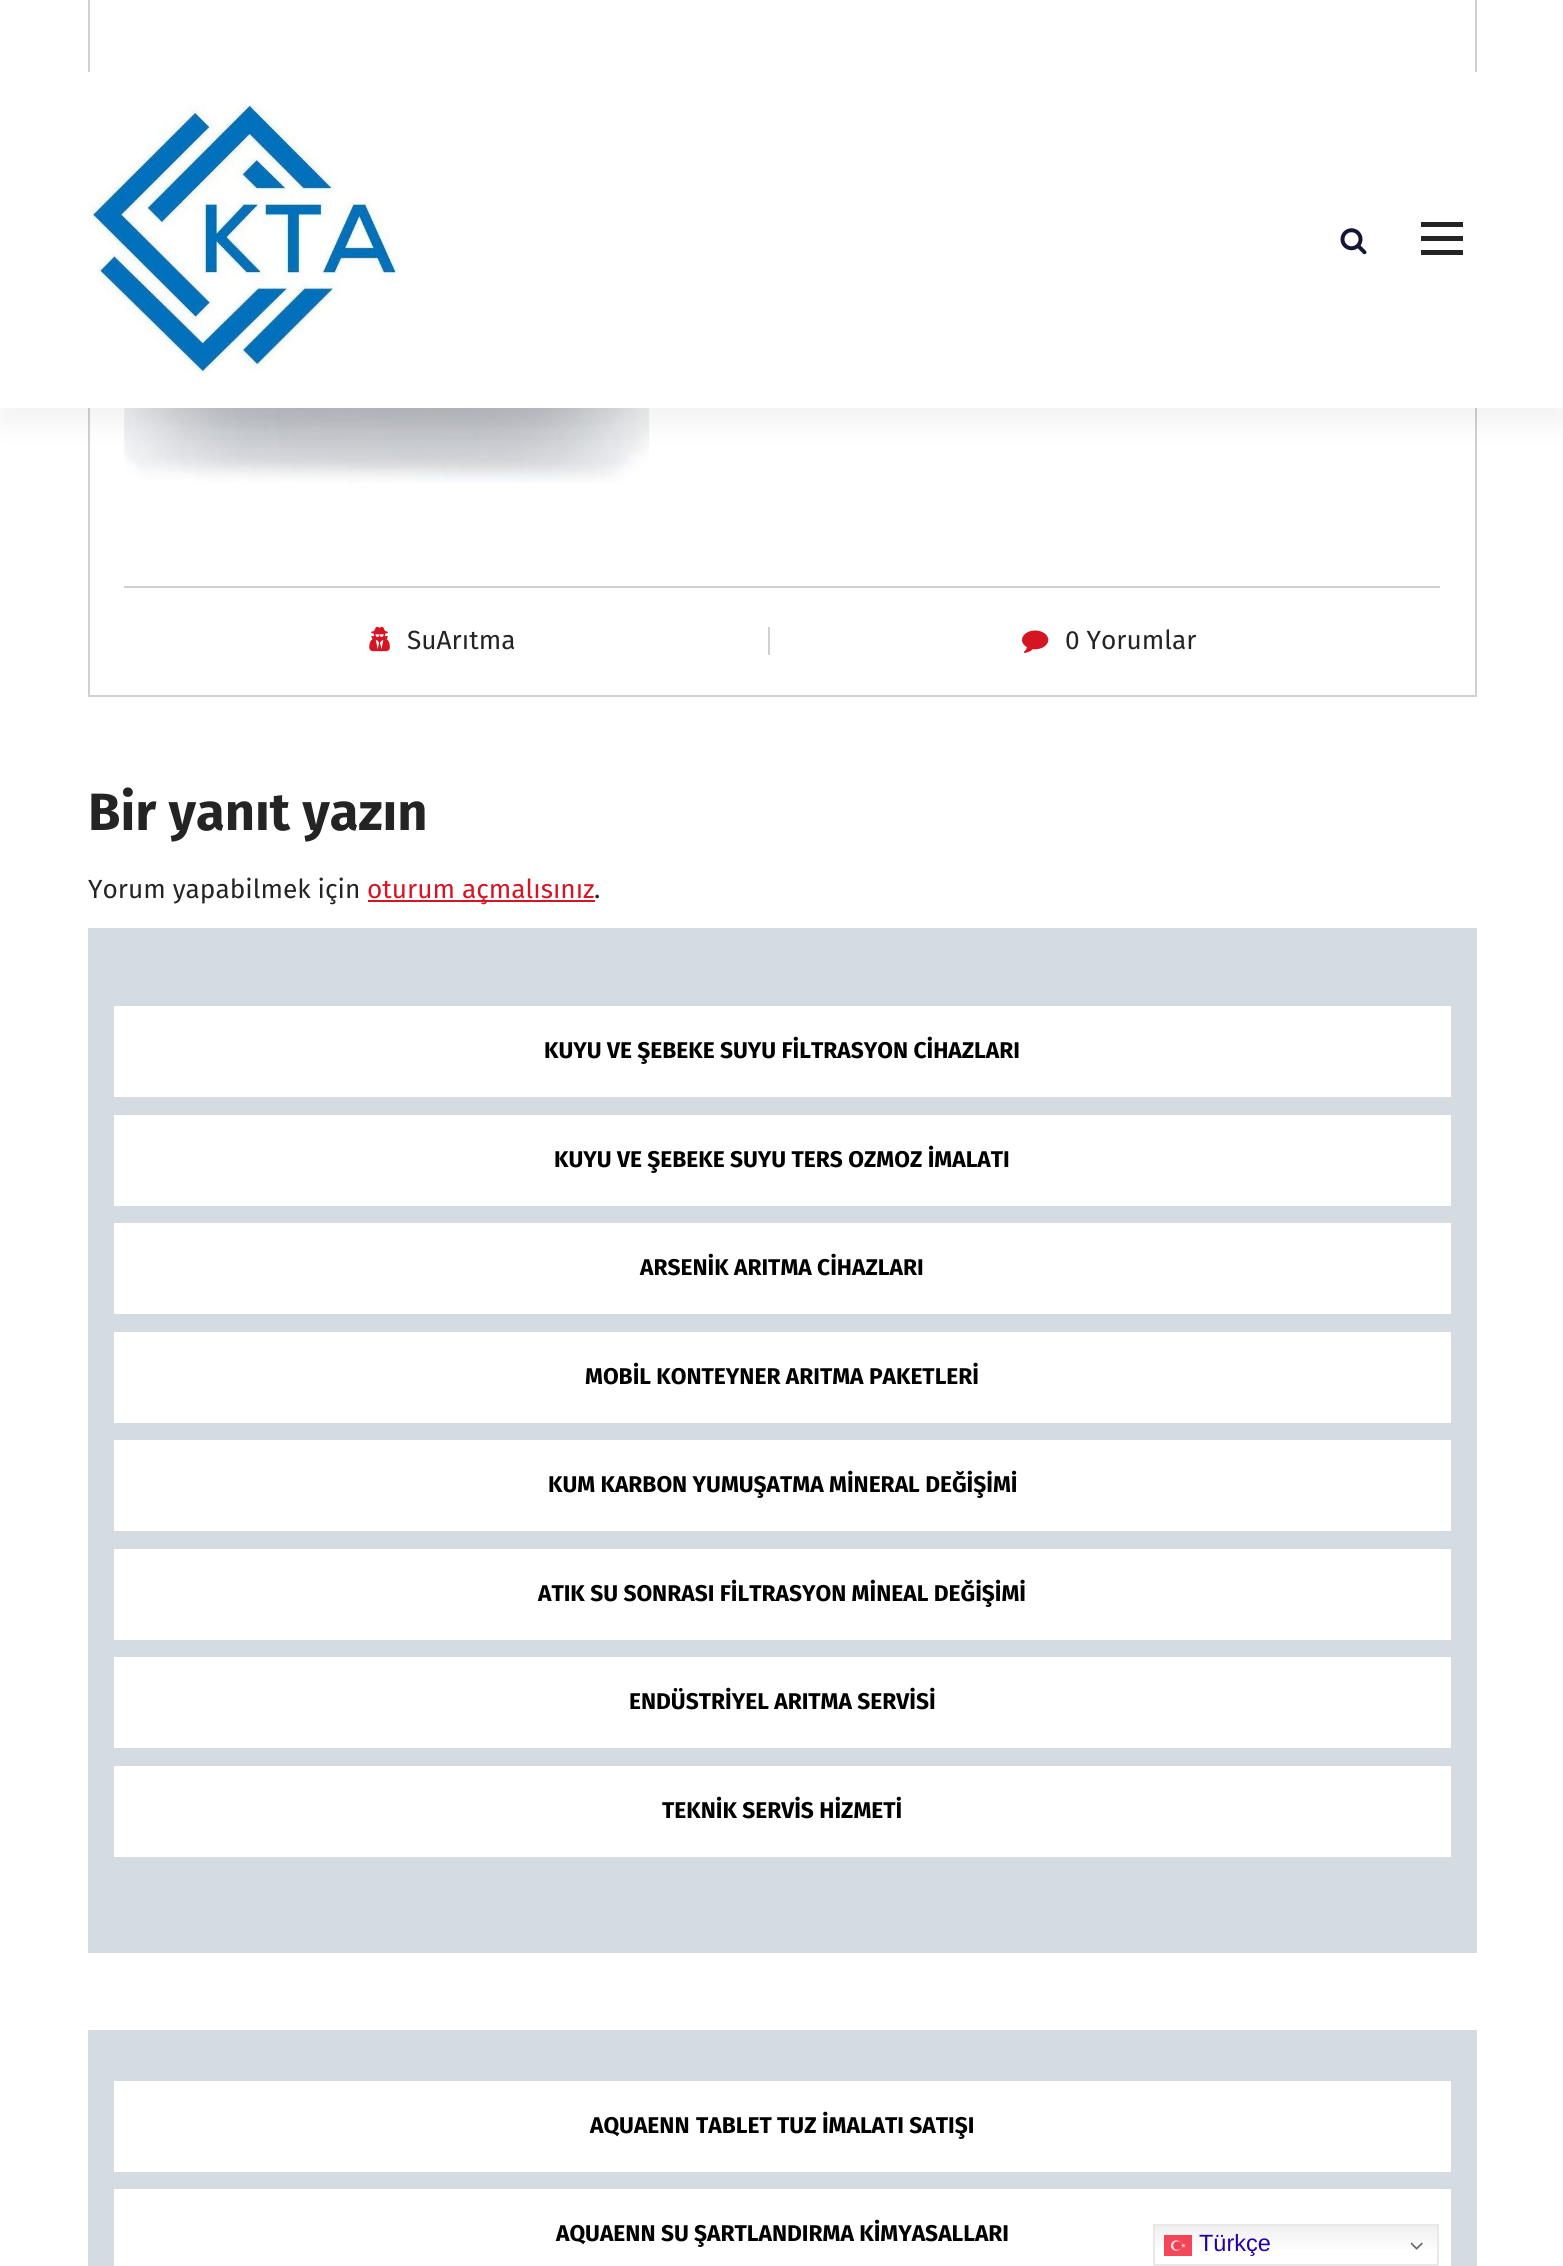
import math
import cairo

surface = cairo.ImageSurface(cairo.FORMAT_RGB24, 1563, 2266)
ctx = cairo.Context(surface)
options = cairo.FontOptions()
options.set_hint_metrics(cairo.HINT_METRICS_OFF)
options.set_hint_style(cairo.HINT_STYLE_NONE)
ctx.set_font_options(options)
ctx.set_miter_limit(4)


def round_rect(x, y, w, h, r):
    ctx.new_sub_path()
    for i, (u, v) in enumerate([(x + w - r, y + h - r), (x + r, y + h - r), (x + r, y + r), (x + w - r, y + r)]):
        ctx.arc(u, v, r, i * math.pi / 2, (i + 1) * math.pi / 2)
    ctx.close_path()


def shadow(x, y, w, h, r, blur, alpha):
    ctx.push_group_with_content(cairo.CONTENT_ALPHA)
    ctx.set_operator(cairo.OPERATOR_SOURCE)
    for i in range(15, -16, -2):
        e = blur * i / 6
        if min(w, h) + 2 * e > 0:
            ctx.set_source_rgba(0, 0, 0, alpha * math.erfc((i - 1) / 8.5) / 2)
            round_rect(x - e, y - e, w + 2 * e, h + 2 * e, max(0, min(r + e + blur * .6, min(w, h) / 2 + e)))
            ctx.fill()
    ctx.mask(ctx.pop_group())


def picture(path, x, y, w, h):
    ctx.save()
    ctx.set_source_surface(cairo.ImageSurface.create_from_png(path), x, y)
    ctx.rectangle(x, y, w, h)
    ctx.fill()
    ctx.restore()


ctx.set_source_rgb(1, 1, 1)
ctx.paint()
ctx.rectangle(89, -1, 1387, 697)
ctx.set_source_rgb(0.816, 0.816, 0.816)
ctx.stroke()
picture("img3.png", 124, 408, 526, 75)
ctx.set_source_rgb(0, 0, 0)
shadow(0, 89, 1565, 336, 0, 13, 0.05)
ctx.set_source_rgb(1, 1, 1)
ctx.rectangle(0, 72, 1563, 336)
ctx.fill()
picture("img1.png", 88, 100, 312, 273)
picture("img2.png", 1340, 228, 27, 27)
ctx.set_source_rgb(0.141, 0.141, 0.141)
ctx.rectangle(1421, 222, 42, 5)
ctx.fill()
ctx.rectangle(1421, 236, 42, 5)
ctx.fill()
ctx.rectangle(1421, 250, 42, 5)
ctx.fill()
ctx.set_source_rgb(0.816, 0.816, 0.816)
ctx.rectangle(124, 586, 1316, 2)
ctx.fill()
picture("img4.png", 369, 626, 21, 26)
ctx.select_font_face("Fira Sans")
ctx.set_font_size(26.25)
ctx.set_source_rgb(0.141, 0.141, 0.141)
ctx.move_to(407, 649)
ctx.show_text("SuArıtma")
ctx.set_source_rgb(0.816, 0.816, 0.816)
ctx.rectangle(768, 627, 2, 28)
ctx.fill()
picture("img5.png", 1022, 630, 27, 23)
ctx.set_source_rgb(0.141, 0.141, 0.141)
ctx.move_to(1065, 649)
ctx.show_text("0 Yorumlar")
ctx.select_font_face("Fira Sans", cairo.FONT_SLANT_NORMAL, cairo.FONT_WEIGHT_BOLD)
ctx.set_font_size(52.5)
ctx.move_to(88, 830)
ctx.show_text("Bir yanıt yazın")
ctx.select_font_face("Fira Sans")
ctx.set_font_size(26.25)
ctx.move_to(88, 898)
ctx.show_text("Yorum yapabilmek için")
ctx.set_source_rgb(0.839, 0.082, 0.137)
ctx.rectangle(368, 900, 227, 2)
ctx.fill()
ctx.move_to(367, 898)
ctx.show_text("oturum açmalısınız")
ctx.set_source_rgb(0.141, 0.141, 0.141)
ctx.move_to(594, 898)
ctx.show_text(".")
ctx.set_source_rgb(0.835, 0.863, 0.882)
ctx.rectangle(88, 928, 1389, 1025)
ctx.fill()
ctx.set_source_rgb(1, 1, 1)
ctx.rectangle(114, 1006, 1337, 91)
ctx.fill()
ctx.select_font_face("Fira Sans", cairo.FONT_SLANT_NORMAL, cairo.FONT_WEIGHT_BOLD)
ctx.set_font_size(22.75)
ctx.set_source_rgb(0, 0, 0)
ctx.move_to(544, 1058)
ctx.show_text("KUYU VE ŞEBEKE SUYU FİLTRASYON CİHAZLARI")
ctx.set_source_rgb(1, 1, 1)
ctx.rectangle(114, 1115, 1337, 91)
ctx.fill()
ctx.set_source_rgb(0, 0, 0)
ctx.move_to(554, 1167)
ctx.show_text("KUYU VE ŞEBEKE SUYU TERS OZMOZ İMALATI")
ctx.set_source_rgb(1, 1, 1)
ctx.rectangle(114, 1223, 1337, 91)
ctx.fill()
ctx.set_source_rgb(0, 0, 0)
ctx.move_to(640, 1275)
ctx.show_text("ARSENİK ARITMA CİHAZLARI")
ctx.set_source_rgb(1, 1, 1)
ctx.rectangle(114, 1332, 1337, 91)
ctx.fill()
ctx.set_source_rgb(0, 0, 0)
ctx.move_to(585, 1384)
ctx.show_text("MOBİL KONTEYNER ARITMA PAKETLERİ")
ctx.set_source_rgb(1, 1, 1)
ctx.rectangle(114, 1440, 1337, 91)
ctx.fill()
ctx.set_source_rgb(0, 0, 0)
ctx.move_to(548, 1492)
ctx.show_text("KUM KARBON YUMUŞATMA MİNERAL DEĞİŞİMİ")
ctx.set_source_rgb(1, 1, 1)
ctx.rectangle(114, 1549, 1337, 91)
ctx.fill()
ctx.set_source_rgb(0, 0, 0)
ctx.move_to(538, 1601)
ctx.show_text("ATIK SU SONRASI FİLTRASYON MİNEAL DEĞİŞİMİ")
ctx.set_source_rgb(1, 1, 1)
ctx.rectangle(114, 1657, 1337, 91)
ctx.fill()
ctx.set_source_rgb(0, 0, 0)
ctx.move_to(629, 1709)
ctx.show_text("ENDÜSTRİYEL ARITMA SERVİSİ")
ctx.set_source_rgb(1, 1, 1)
ctx.rectangle(114, 1766, 1337, 91)
ctx.fill()
ctx.set_source_rgb(0, 0, 0)
ctx.move_to(662, 1818)
ctx.show_text("TEKNİK SERVİS HİZMETİ")
ctx.set_source_rgb(0.835, 0.863, 0.882)
ctx.rectangle(88, 2030, 1389, 236)
ctx.fill()
ctx.set_source_rgb(1, 1, 1)
ctx.rectangle(114, 2081, 1337, 91)
ctx.fill()
ctx.set_source_rgb(0, 0, 0)
ctx.move_to(590, 2133)
ctx.show_text("AQUAENN")
ctx.move_to(696, 2133)
ctx.show_text("TABLET TUZ İMALATI SATIŞI")
ctx.set_source_rgb(1, 1, 1)
ctx.rectangle(114, 2189, 1337, 77)
ctx.fill()
ctx.set_source_rgb(0, 0, 0)
ctx.move_to(556, 2241)
ctx.show_text("AQUAENN SU ŞARTLANDIRMA KİMYASALLARI")
gradient = cairo.LinearGradient(1296, 2224, 1296, 2266)
gradient.add_color_stop_rgba(0, 0.937, 0.937, 0.937, 1)
gradient.add_color_stop_rgba(0.7, 1, 1, 1, 1)
ctx.set_source(gradient)
ctx.rectangle(1155, 2226, 282, 23)
ctx.fill()
ctx.rectangle(1154, 2225, 284, 40)
ctx.set_source_rgb(0.91, 0.91, 0.91)
ctx.stroke()
picture("img6.png", 1164, 2235, 28, 21)
ctx.select_font_face("Liberation Sans")
ctx.set_font_size(23.5)
ctx.set_source_rgb(0.145, 0, 0.627)
ctx.move_to(1199, 2251)
ctx.show_text("Türkçe")
picture("img7.png", 1411, 2242, 12, 8)
surface.write_to_png("page.png")
